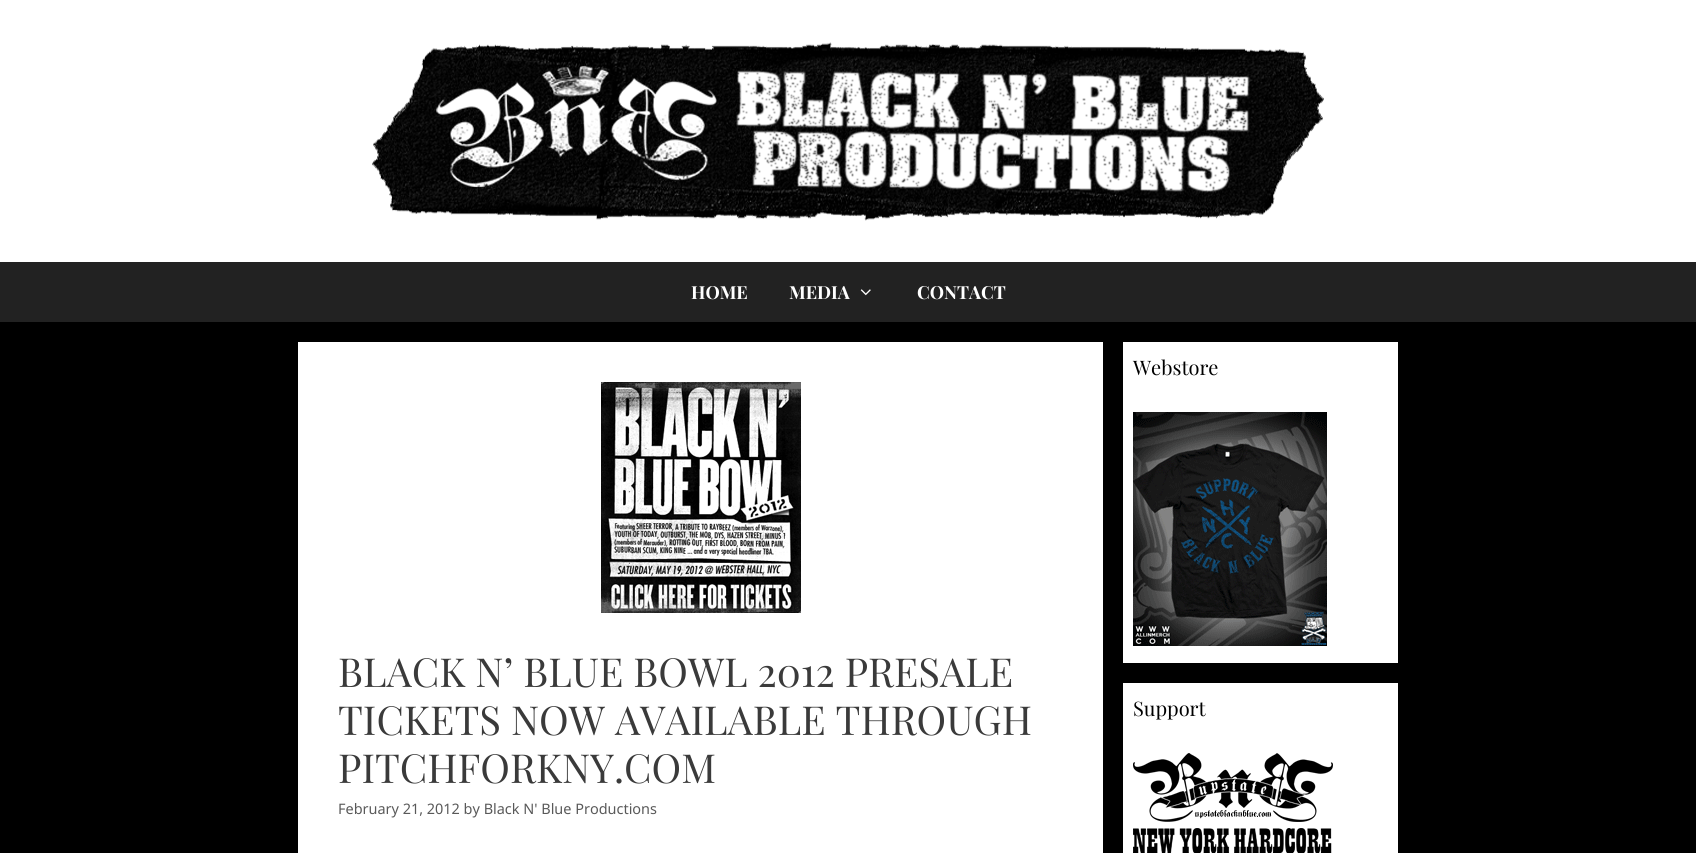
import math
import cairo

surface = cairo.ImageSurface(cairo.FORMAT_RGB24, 1696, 853)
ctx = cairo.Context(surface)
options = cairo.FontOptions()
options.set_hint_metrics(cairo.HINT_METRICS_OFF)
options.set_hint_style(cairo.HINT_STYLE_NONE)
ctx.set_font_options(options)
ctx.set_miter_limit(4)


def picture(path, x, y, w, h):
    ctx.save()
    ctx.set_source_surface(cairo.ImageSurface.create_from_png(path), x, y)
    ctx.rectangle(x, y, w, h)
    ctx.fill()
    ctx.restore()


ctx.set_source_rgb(0, 0, 0)
ctx.paint()
ctx.set_source_rgb(1, 1, 1)
ctx.rectangle(0, 0, 1696, 262)
ctx.fill()
picture("img1.png", 372, 42, 952, 179)
ctx.set_source_rgb(0.133, 0.133, 0.133)
ctx.rectangle(0, 262, 1696, 60)
ctx.fill()
ctx.select_font_face("Playfair Display", cairo.FONT_SLANT_NORMAL, cairo.FONT_WEIGHT_BOLD)
ctx.set_font_size(18)
ctx.set_source_rgb(1, 1, 1)
ctx.move_to(691, 299)
ctx.show_text("HOME")
ctx.move_to(789, 299)
ctx.show_text("MEDIA")
picture("img2.png", 860, 289, 11, 7)
ctx.move_to(917, 299)
ctx.show_text("CONTACT")
ctx.rectangle(1123, 342, 275, 321)
ctx.fill()
ctx.select_font_face("Playfair Display")
ctx.set_font_size(20)
ctx.set_source_rgb(0, 0, 0)
ctx.move_to(1133, 375)
ctx.show_text("Webstore")
picture("img3.png", 1133, 412, 194, 234)
ctx.set_source_rgb(1, 1, 1)
ctx.rectangle(1123, 683, 275, 170)
ctx.fill()
ctx.set_source_rgb(0, 0, 0)
ctx.move_to(1133, 716)
ctx.show_text("Support")
picture("img4.png", 1133, 753, 200, 69)
picture("img5.png", 1133, 828, 199, 25)
ctx.set_source_rgb(1, 1, 1)
ctx.rectangle(298, 342, 805, 511)
ctx.fill()
picture("img6.png", 601, 382, 200, 231)
ctx.set_font_size(40)
ctx.set_source_rgb(0.227, 0.227, 0.227)
ctx.move_to(338, 687)
ctx.show_text("BLACK N’ BLUE BOWL 2012 PRESALE")
ctx.move_to(338, 735)
ctx.show_text("TICKETS NOW AVAILABLE THROUGH")
ctx.move_to(338, 783)
ctx.show_text("PITCHFORKNY.COM")
ctx.select_font_face("Noto Sans")
ctx.set_font_size(14.45)
ctx.set_source_rgb(0.349, 0.349, 0.349)
ctx.move_to(338, 814)
ctx.show_text("February 21, 2012 by Black N' Blue Productions")
surface.write_to_png("page.png")
